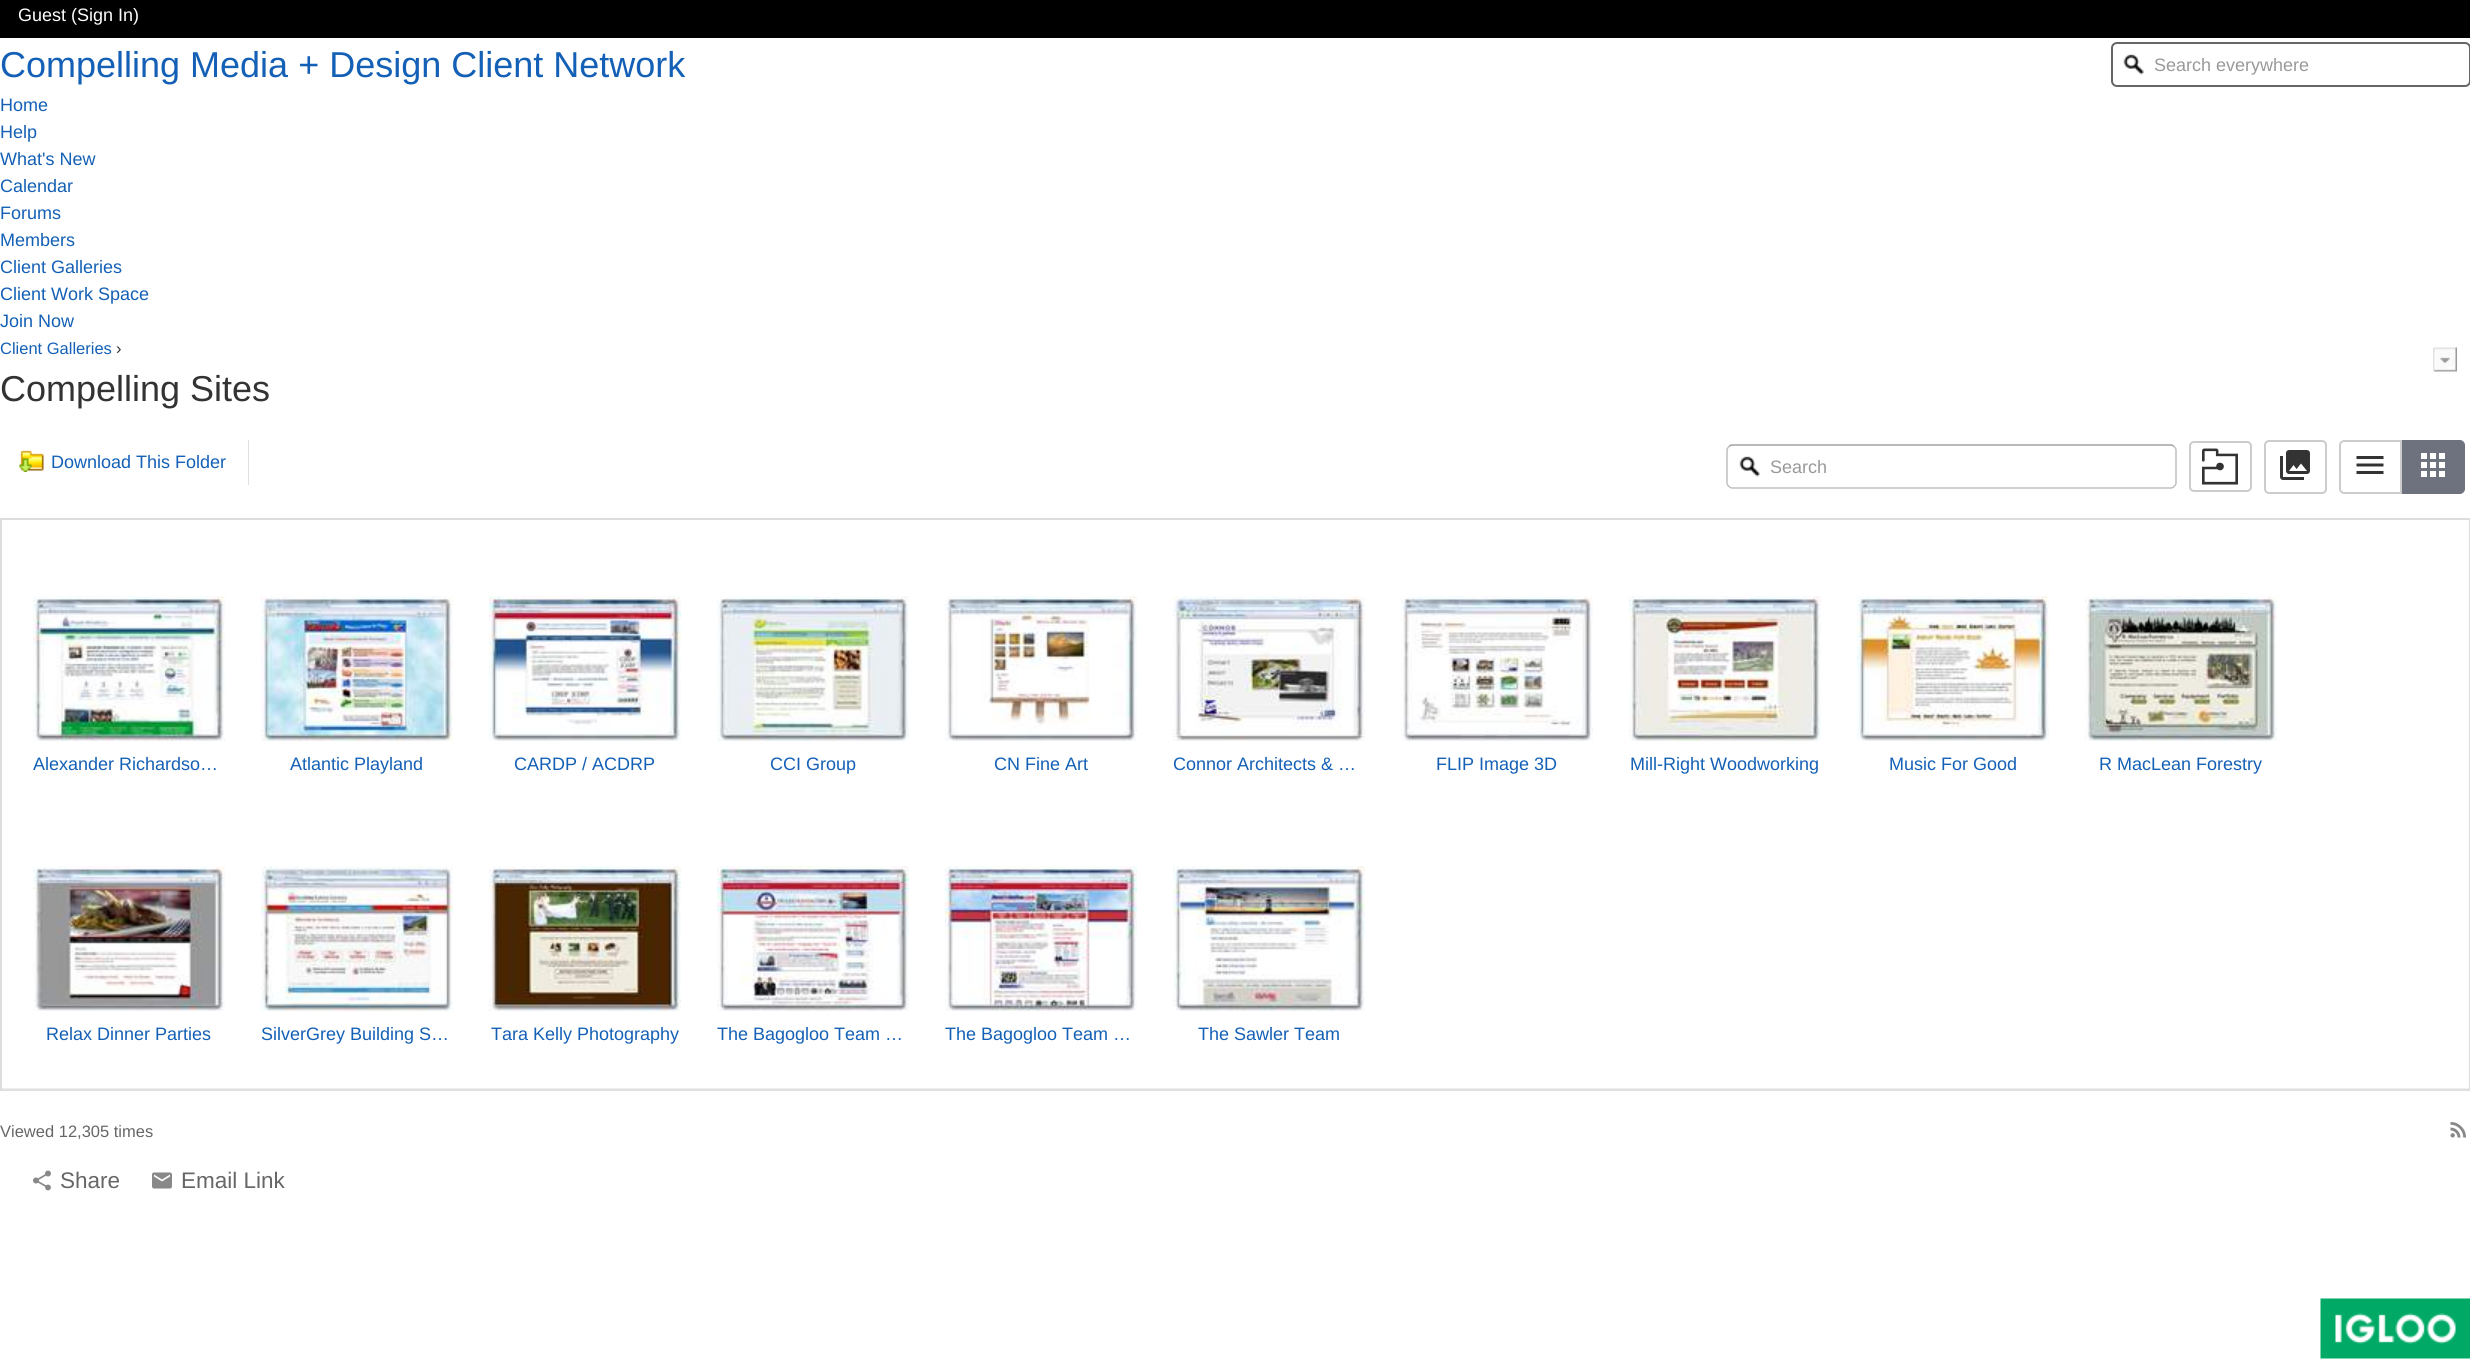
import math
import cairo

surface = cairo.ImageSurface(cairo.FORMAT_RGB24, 2470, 1365)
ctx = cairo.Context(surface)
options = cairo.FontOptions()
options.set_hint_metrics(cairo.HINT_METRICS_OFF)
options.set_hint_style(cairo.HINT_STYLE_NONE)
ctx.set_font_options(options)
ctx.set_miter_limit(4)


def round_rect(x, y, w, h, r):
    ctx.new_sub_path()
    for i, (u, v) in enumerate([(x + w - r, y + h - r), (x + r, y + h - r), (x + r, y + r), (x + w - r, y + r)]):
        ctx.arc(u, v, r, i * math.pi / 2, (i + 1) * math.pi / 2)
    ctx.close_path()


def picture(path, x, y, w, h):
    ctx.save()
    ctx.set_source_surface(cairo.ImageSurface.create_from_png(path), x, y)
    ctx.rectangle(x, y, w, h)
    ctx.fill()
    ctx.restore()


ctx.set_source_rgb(1, 1, 1)
ctx.paint()
ctx.set_source_rgb(0, 0, 0)
ctx.rectangle(0, 0, 2470, 38)
ctx.fill()
ctx.select_font_face("Liberation Sans")
ctx.set_font_size(18)
ctx.set_source_rgb(1, 1, 1)
ctx.move_to(18, 21)
ctx.show_text("Guest (Sign In)")
ctx.set_font_size(36)
ctx.set_source_rgb(0.078, 0.376, 0.714)
ctx.move_to(0, 77)
ctx.show_text("Compelling Media + Design Client Network")
round_rect(2112, 43, 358, 43, 5)
ctx.set_source_rgb(0.4, 0.4, 0.4)
ctx.stroke()
picture("img1.png", 2123, 54, 21, 21)
ctx.set_font_size(18)
ctx.set_source_rgb(0.6, 0.6, 0.6)
ctx.move_to(2154, 71)
ctx.show_text("Search everywhere")
ctx.set_source_rgb(0.078, 0.376, 0.714)
ctx.move_to(0, 111)
ctx.show_text("Home")
ctx.move_to(0, 138)
ctx.show_text("Help")
ctx.move_to(0, 165)
ctx.show_text("What's New")
ctx.move_to(0, 192)
ctx.show_text("Calendar")
ctx.move_to(0, 219)
ctx.show_text("Forums")
ctx.move_to(0, 246)
ctx.show_text("Members")
ctx.move_to(0, 273)
ctx.show_text("Client Galleries")
ctx.move_to(0, 300)
ctx.show_text("Client Work Space")
ctx.move_to(0, 327)
ctx.show_text("Join Now")
ctx.set_font_size(16.5)
ctx.move_to(0, 354)
ctx.show_text("Client Galleries")
ctx.set_source_rgb(0.2, 0.2, 0.2)
ctx.move_to(116, 354)
ctx.show_text("›")
ctx.set_font_size(36)
ctx.move_to(0, 401)
ctx.show_text("Compelling Sites")
picture("img2.png", 2433, 347, 24, 25)
ctx.set_source_rgb(0.878, 0.878, 0.878)
ctx.rectangle(248, 440, 1, 45)
ctx.fill()
picture("img3.png", 19, 450, 25, 22)
ctx.set_font_size(18)
ctx.set_source_rgb(0.078, 0.376, 0.714)
ctx.move_to(51, 468)
ctx.show_text("Download This Folder")
ctx.new_path()
ctx.move_to(1729, 446.5)
ctx.curve_to(1730, 445.5, 1731, 445, 1732.5, 445)
ctx.line_to(2170.5, 445)
ctx.curve_to(2172, 445, 2173, 445.5, 2174, 446.5)
ctx.set_source_rgb(0.624, 0.624, 0.624)
ctx.set_line_width(1.5)
ctx.stroke()
ctx.new_path()
ctx.move_to(2174, 446.5)
ctx.curve_to(2175, 447.5, 2176, 448.5, 2176, 450)
ctx.line_to(2176, 483)
ctx.curve_to(2176, 484.5, 2175, 485.5, 2174, 486.5)
ctx.curve_to(2173, 487.5, 2172, 488, 2170.5, 488)
ctx.line_to(1732.5, 488)
ctx.curve_to(1731, 488, 1730, 487.5, 1729, 486.5)
ctx.curve_to(1728, 485.5, 1727, 484.5, 1727, 483)
ctx.line_to(1727, 450)
ctx.curve_to(1727, 448.5, 1728, 447.5, 1729, 446.5)
ctx.set_source_rgb(0.749, 0.749, 0.749)
ctx.stroke()
picture("img4.png", 1739, 456, 21, 21)
ctx.set_source_rgb(0.6, 0.6, 0.6)
ctx.move_to(1770, 473)
ctx.show_text("Search")
round_rect(2190, 442, 61, 49, 4)
ctx.set_source_rgb(0.8, 0.8, 0.8)
ctx.set_line_width(2)
ctx.stroke()
picture("img5.png", 2202, 448, 36, 37)
round_rect(2265, 441, 61, 52, 4)
ctx.stroke()
picture("img6.png", 2280, 450, 30, 30)
ctx.new_path()
ctx.move_to(2344, 441)
ctx.line_to(2401, 441)
ctx.line_to(2401, 493)
ctx.line_to(2344, 493)
ctx.curve_to(2342, 493, 2340, 491, 2340, 489)
ctx.line_to(2340, 445)
ctx.curve_to(2340, 443, 2342, 441, 2344, 441)
ctx.close_path()
ctx.stroke()
picture("img7.png", 2356, 456, 28, 18)
ctx.set_source_rgb(0.427, 0.447, 0.494)
ctx.new_path()
ctx.move_to(2403, 441)
ctx.line_to(2460, 441)
ctx.curve_to(2462, 441, 2464, 443, 2464, 445)
ctx.line_to(2464, 489)
ctx.curve_to(2464, 491, 2462, 493, 2460, 493)
ctx.line_to(2403, 493)
ctx.close_path()
ctx.fill_preserve()
ctx.stroke()
picture("img8.png", 2421, 453, 24, 24)
ctx.set_source_rgb(0.867, 0.867, 0.867)
ctx.rectangle(0, 518, 2470, 2)
ctx.fill()
ctx.rectangle(2469, 518, 1, 573)
ctx.fill()
ctx.set_source_rgb(0.878, 0.878, 0.878)
ctx.rectangle(0, 1089, 2470, 2)
ctx.fill()
ctx.set_source_rgb(0.867, 0.867, 0.867)
ctx.rectangle(0, 518, 2, 573)
ctx.fill()
ctx.set_source_rgb(0.933, 0.933, 0.933)
ctx.rectangle(2, 1088, 2467, 1)
ctx.fill()
picture("img9.png", 33, 596, 192, 146)
ctx.set_source_rgb(0.078, 0.376, 0.714)
ctx.move_to(33, 770)
ctx.show_text("Alexander Richardso…")
picture("img10.png", 261, 596, 192, 146)
ctx.move_to(290, 770)
ctx.show_text("Atlantic Playland")
picture("img11.png", 489, 596, 192, 145)
ctx.move_to(514, 770)
ctx.show_text("CARDP / ACDRP")
picture("img12.png", 717, 596, 192, 146)
ctx.move_to(770, 770)
ctx.show_text("CCI Group")
picture("img13.png", 945, 596, 192, 145)
ctx.move_to(994, 770)
ctx.show_text("CN Fine Art")
picture("img14.png", 1173, 596, 192, 145)
ctx.move_to(1173, 770)
ctx.show_text("Connor Architects & …")
picture("img15.png", 1401, 596, 192, 145)
ctx.move_to(1436, 770)
ctx.show_text("FLIP Image 3D")
picture("img16.png", 1629, 596, 192, 146)
ctx.move_to(1630, 770)
ctx.show_text("Mill-Right Woodworking")
picture("img17.png", 1857, 596, 192, 145)
ctx.move_to(1889, 770)
ctx.show_text("Music For Good")
picture("img18.png", 2085, 596, 192, 145)
ctx.move_to(2099, 770)
ctx.show_text("R MacLean Forestry")
picture("img19.png", 33, 866, 192, 145)
ctx.move_to(46, 1040)
ctx.show_text("Relax Dinner Parties")
picture("img20.png", 261, 866, 192, 146)
ctx.move_to(261, 1040)
ctx.show_text("SilverGrey Building S…")
picture("img21.png", 489, 866, 192, 146)
ctx.move_to(491, 1040)
ctx.show_text("Tara Kelly Photography")
picture("img22.png", 717, 866, 192, 145)
ctx.move_to(717, 1040)
ctx.show_text("The Bagogloo Team …")
picture("img23.png", 945, 866, 192, 145)
ctx.move_to(945, 1040)
ctx.show_text("The Bagogloo Team …")
picture("img24.png", 1173, 866, 192, 145)
ctx.move_to(1198, 1040)
ctx.show_text("The Sawler Team")
ctx.set_font_size(16.5)
ctx.set_source_rgb(0.4, 0.4, 0.4)
ctx.move_to(0, 1137)
ctx.show_text("Viewed 12,305 times")
picture("img25.png", 2450, 1122, 16, 16)
picture("img26.png", 33, 1170, 18, 21)
ctx.set_font_size(22.5)
ctx.move_to(60, 1188)
ctx.show_text("Share")
picture("img27.png", 152, 1172, 20, 17)
ctx.move_to(181, 1188)
ctx.show_text("Email Link")
picture("img28.png", 2320, 1298, 150, 61)
surface.write_to_png("page.png")
